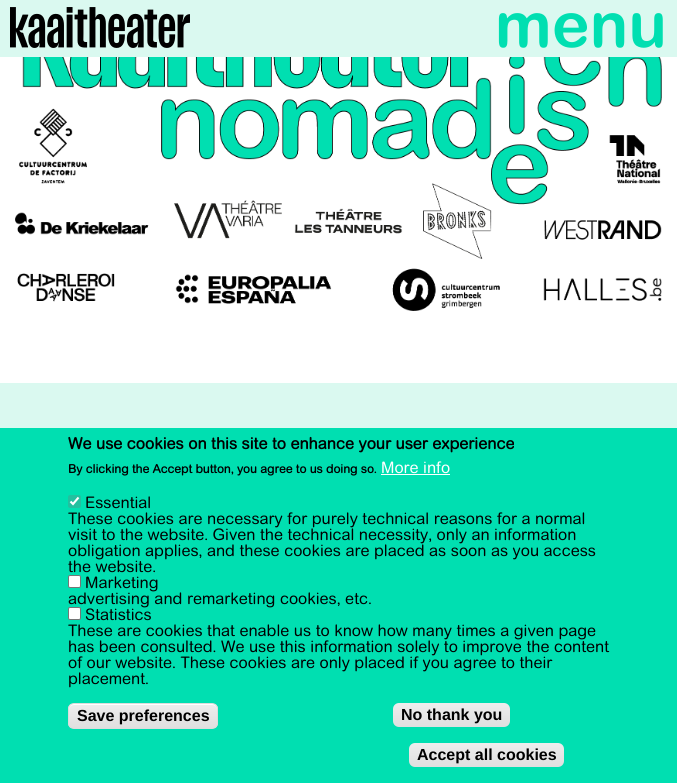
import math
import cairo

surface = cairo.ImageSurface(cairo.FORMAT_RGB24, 677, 783)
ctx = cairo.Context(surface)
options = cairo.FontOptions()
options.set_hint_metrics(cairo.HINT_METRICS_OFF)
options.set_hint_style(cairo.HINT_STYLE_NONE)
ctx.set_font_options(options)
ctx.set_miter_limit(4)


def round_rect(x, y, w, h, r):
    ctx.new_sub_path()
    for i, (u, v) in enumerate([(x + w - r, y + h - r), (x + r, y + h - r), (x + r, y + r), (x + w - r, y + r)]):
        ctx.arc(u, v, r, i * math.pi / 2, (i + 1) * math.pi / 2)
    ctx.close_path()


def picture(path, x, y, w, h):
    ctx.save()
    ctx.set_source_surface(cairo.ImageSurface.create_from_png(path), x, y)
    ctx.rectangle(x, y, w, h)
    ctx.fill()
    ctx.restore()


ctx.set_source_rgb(1, 1, 1)
ctx.paint()
ctx.set_source_rgb(0.855, 0.976, 0.941)
ctx.rectangle(0, 0, 677, 57)
ctx.fill()
picture("img1.png", 10, 7, 180, 41)
ctx.select_font_face("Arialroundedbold", cairo.FONT_SLANT_NORMAL, cairo.FONT_WEIGHT_BOLD)
ctx.set_font_size(64)
ctx.set_source_rgb(0, 0.875, 0.694)
ctx.move_to(495, 47)
ctx.show_text("menu")
picture("img2.png", 15, 57, 647, 254)
ctx.set_source_rgb(0.855, 0.976, 0.941)
ctx.rectangle(0, 383, 677, 45)
ctx.fill()
ctx.set_source_rgb(0, 0.875, 0.694)
ctx.rectangle(0, 428, 677, 355)
ctx.fill()
ctx.select_font_face("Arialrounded", cairo.FONT_SLANT_NORMAL, cairo.FONT_WEIGHT_BOLD)
ctx.set_font_size(16)
ctx.set_source_rgb(0, 0, 0)
ctx.move_to(68, 449)
ctx.show_text("We use cookies on this site to enhance your user experience")
ctx.set_font_size(12)
ctx.move_to(68, 473)
ctx.show_text("By clicking the Accept button, you agree to us doing so.")
ctx.select_font_face("Arialrounded")
ctx.set_font_size(16)
ctx.set_source_rgb(1, 1, 1)
ctx.move_to(381, 473)
ctx.show_text("More info")
ctx.rectangle(381, 474, 69, 1)
ctx.fill()
ctx.set_source_rgb(0.137, 0.753, 0.624)
round_rect(68, 495, 13, 13, 2)
ctx.fill()
ctx.new_path()
ctx.move_to(70.5, 501.5)
ctx.line_to(73, 504)
ctx.line_to(78.5, 497.5)
ctx.set_source_rgb(1, 1, 1)
ctx.set_line_width(2.1)
ctx.stroke()
ctx.set_source_rgb(0, 0, 0)
ctx.move_to(85, 508)
ctx.show_text("Essential")
ctx.move_to(68, 524)
ctx.show_text("These cookies are necessary for purely technical reasons for a normal")
ctx.move_to(68, 540)
ctx.show_text("visit to the website. Given the technical necessity, only an information")
ctx.move_to(68, 556)
ctx.show_text("obligation applies, and these cookies are placed as soon as you access")
ctx.move_to(68, 572)
ctx.show_text("the website.")
ctx.set_source_rgb(1, 1, 1)
round_rect(68.5, 575.5, 12, 12, 1.5)
ctx.fill_preserve()
ctx.set_source_rgb(0.463, 0.463, 0.463)
ctx.set_line_width(1)
ctx.stroke()
ctx.set_source_rgb(0, 0, 0)
ctx.move_to(85, 588)
ctx.show_text("Marketing")
ctx.move_to(68, 604)
ctx.show_text("advertising and remarketing cookies, etc.")
ctx.set_source_rgb(1, 1, 1)
round_rect(68.5, 607.5, 12, 12, 1.5)
ctx.fill_preserve()
ctx.set_source_rgb(0.463, 0.463, 0.463)
ctx.stroke()
ctx.set_source_rgb(0, 0, 0)
ctx.move_to(85, 620)
ctx.show_text("Statistics")
ctx.move_to(68, 636)
ctx.show_text("These are cookies that enable us to know how many times a given page")
ctx.move_to(68, 652)
ctx.show_text("has been consulted. We use this information solely to improve the content")
ctx.move_to(68, 668)
ctx.show_text("of our website. These cookies are only placed if you agree to their")
ctx.move_to(68, 684)
ctx.show_text("placement.")
ctx.save()
round_rect(68, 703, 150, 26, 6)
ctx.clip()
gradient = cairo.LinearGradient(143, 704, 143, 728)
gradient.add_color_stop_rgba(0.05, 0.929, 0.929, 0.929, 1)
gradient.add_color_stop_rgba(1, 0.875, 0.875, 0.875, 1)
ctx.set_source(gradient)
ctx.rectangle(68, 704, 150, 24)
ctx.fill()
ctx.restore()
ctx.set_source_rgb(1, 1, 1)
ctx.new_path()
ctx.move_to(74, 705)
ctx.line_to(212, 705)
ctx.curve_to(215, 705, 217, 707, 217, 710)
ctx.line_to(217, 709)
ctx.curve_to(217, 706, 215, 704, 212, 704)
ctx.line_to(74, 704)
ctx.curve_to(71, 704, 69, 706, 69, 709)
ctx.line_to(69, 710)
ctx.curve_to(69, 707, 71, 705, 74, 705)
ctx.close_path()
ctx.fill()
round_rect(68.5, 703.5, 149, 25, 5.5)
ctx.set_source_rgb(0.863, 0.863, 0.863)
ctx.stroke()
ctx.select_font_face("Liberation Sans", cairo.FONT_SLANT_NORMAL, cairo.FONT_WEIGHT_BOLD)
ctx.set_source_rgb(0, 0, 0)
ctx.move_to(77, 721)
ctx.show_text("Save preferences")
gradient = cairo.LinearGradient(452, 703, 452, 727)
gradient.add_color_stop_rgba(0.05, 0.929, 0.929, 0.929, 1)
gradient.add_color_stop_rgba(1, 0.875, 0.875, 0.875, 1)
ctx.set_source(gradient)
round_rect(393, 703, 117, 24, 6)
ctx.fill()
ctx.set_source_rgb(0, 0, 0)
ctx.move_to(401, 720)
ctx.show_text("No thank you")
gradient = cairo.LinearGradient(487, 743, 487, 767)
gradient.add_color_stop_rgba(0.05, 0.929, 0.929, 0.929, 1)
gradient.add_color_stop_rgba(1, 0.875, 0.875, 0.875, 1)
ctx.set_source(gradient)
round_rect(409, 743, 155, 24, 6)
ctx.fill()
ctx.set_source_rgb(0, 0, 0)
ctx.move_to(417, 760)
ctx.show_text("Accept all cookies")
surface.write_to_png("page.png")
